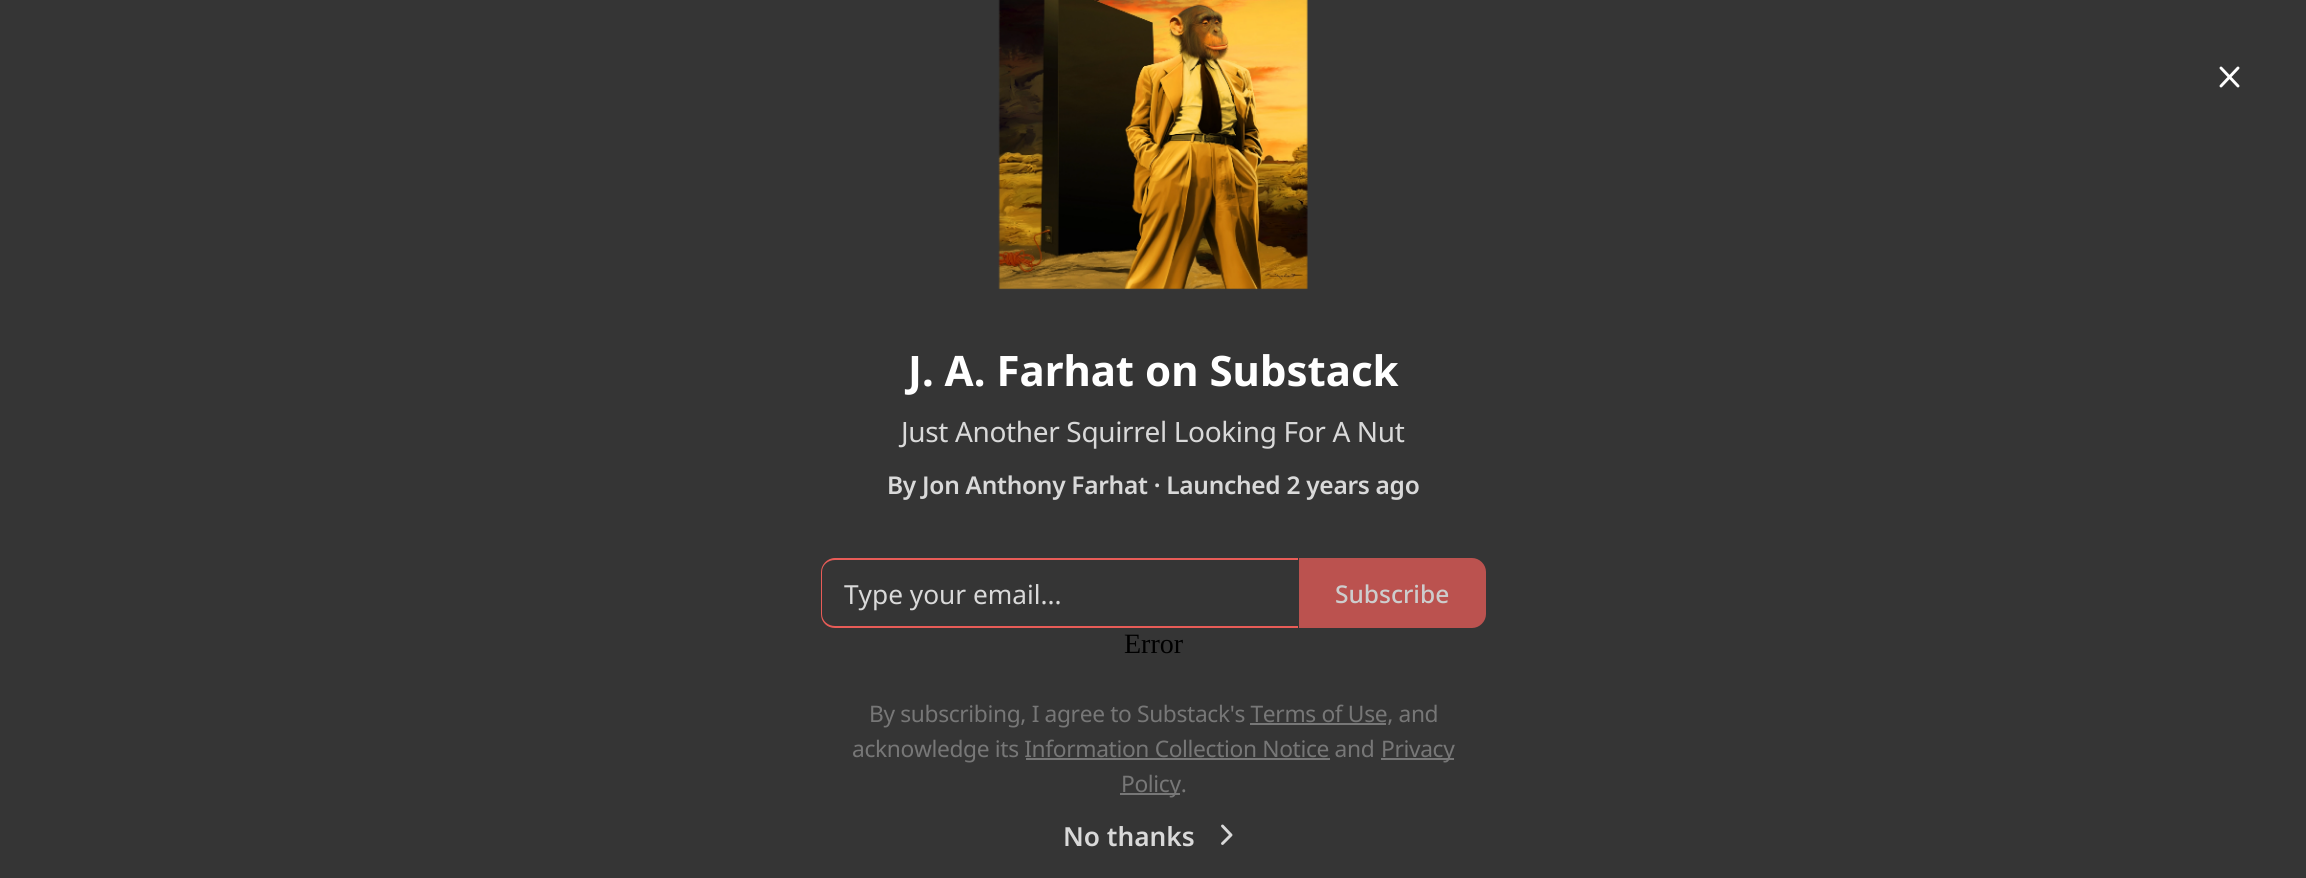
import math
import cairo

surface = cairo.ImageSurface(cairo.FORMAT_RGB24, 2306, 878)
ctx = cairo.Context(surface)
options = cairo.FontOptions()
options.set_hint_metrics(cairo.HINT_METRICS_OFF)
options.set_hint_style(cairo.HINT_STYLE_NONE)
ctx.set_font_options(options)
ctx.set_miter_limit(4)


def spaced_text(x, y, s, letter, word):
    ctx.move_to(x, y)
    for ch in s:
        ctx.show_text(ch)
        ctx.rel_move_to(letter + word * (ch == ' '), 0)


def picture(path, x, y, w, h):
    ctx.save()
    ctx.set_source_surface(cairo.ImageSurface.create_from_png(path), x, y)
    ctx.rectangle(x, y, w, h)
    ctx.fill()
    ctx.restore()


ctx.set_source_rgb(0.208, 0.208, 0.208)
ctx.paint()
picture("img1.png", 998, 0, 310, 290)
ctx.new_path()
ctx.move_to(2238, 68)
ctx.line_to(2221, 86)
ctx.move_to(2221, 68)
ctx.line_to(2238, 86)
ctx.set_source_rgb(1, 1, 1)
ctx.set_line_width(2.9)
ctx.set_line_cap(cairo.LINE_CAP_ROUND)
ctx.set_line_join(cairo.LINE_JOIN_ROUND)
ctx.stroke()
ctx.select_font_face("Noto Sans", cairo.FONT_SLANT_NORMAL, cairo.FONT_WEIGHT_BOLD)
ctx.set_font_size(42)
ctx.move_to(908, 386)
ctx.show_text("J. A. Farhat on Substack")
ctx.select_font_face("Noto Sans")
ctx.set_font_size(28)
ctx.set_source_rgb(0.851, 0.851, 0.851)
spaced_text(901, 442, "Just Another Squirrel Looking For A Nut", -0.35, 0)
ctx.select_font_face("Noto Sans SemiBold")
ctx.set_font_size(24.5)
spaced_text(887, 494, "By Jon Anthony Farhat · Launched 2 years ago", -0.3, 0)
ctx.set_source_rgb(0.91, 0.361, 0.341)
ctx.set_fill_rule(cairo.FILL_RULE_EVEN_ODD)
ctx.new_path()
ctx.move_to(835, 558)
ctx.line_to(1298, 558)
ctx.line_to(1298, 628)
ctx.line_to(835, 628)
ctx.curve_to(827, 628, 821, 622, 821, 614)
ctx.line_to(821, 572)
ctx.curve_to(821, 565, 827, 558, 835, 558)
ctx.close_path()
ctx.move_to(835, 560)
ctx.line_to(1298, 560)
ctx.line_to(1298, 626)
ctx.line_to(835, 626)
ctx.curve_to(828, 626, 822, 621, 822, 614)
ctx.line_to(822, 572)
ctx.curve_to(822, 565, 828, 560, 835, 560)
ctx.close_path()
ctx.fill()
ctx.save()
ctx.set_fill_rule(cairo.FILL_RULE_WINDING)
ctx.rectangle(844, 576, 434, 35)
ctx.clip()
ctx.select_font_face("Noto Sans")
ctx.set_font_size(26.25)
ctx.set_source_rgb(0.851, 0.851, 0.851)
ctx.move_to(844, 604)
ctx.show_text("Type your email...")
ctx.restore()
ctx.set_source_rgb(0.733, 0.322, 0.31)
ctx.new_path()
ctx.move_to(1300, 559)
ctx.line_to(1472, 559)
ctx.curve_to(1479, 559, 1485, 565, 1485, 572)
ctx.line_to(1485, 614)
ctx.curve_to(1485, 621, 1479, 627, 1472, 627)
ctx.line_to(1300, 627)
ctx.close_path()
ctx.fill_preserve()
ctx.set_line_width(2)
ctx.set_line_cap(cairo.LINE_CAP_BUTT)
ctx.set_line_join(cairo.LINE_JOIN_MITER)
ctx.stroke()
ctx.select_font_face("Noto Sans Medium")
ctx.set_source_rgb(0.804, 0.804, 0.804)
ctx.move_to(1335, 603)
ctx.show_text("Subscribe")
ctx.select_font_face("Liberation Serif")
ctx.set_font_size(28)
ctx.set_source_rgb(0, 0, 0)
ctx.move_to(1124, 653)
ctx.show_text("Error")
ctx.select_font_face("Noto Sans")
ctx.set_font_size(22.75)
ctx.set_source_rgb(0.467, 0.467, 0.467)
spaced_text(869, 722, "By subscribing, I agree to Substack's Terms of Use, and", -0.35, 0)
ctx.rectangle(1250, 723, 136, 2)
ctx.fill()
spaced_text(852, 757, "acknowledge its Information Collection Notice and", -0.35, 0)
ctx.rectangle(1381, 758, 73, 2)
ctx.fill()
spaced_text(1381, 757, "Privacy", -0.35, 0)
ctx.rectangle(1026, 758, 304, 2)
ctx.fill()
ctx.rectangle(1120, 793, 60, 2)
ctx.fill()
spaced_text(1121, 792, "Policy.", -0.35, 0)
ctx.select_font_face("Noto Sans SemiBold")
ctx.set_font_size(26.25)
ctx.set_source_rgb(0.851, 0.851, 0.851)
ctx.move_to(1063, 846)
ctx.show_text("No thanks")
ctx.new_path()
ctx.move_to(1222.5, 843.5)
ctx.line_to(1231, 835)
ctx.line_to(1222.5, 826)
ctx.set_line_width(2.9)
ctx.set_line_cap(cairo.LINE_CAP_ROUND)
ctx.set_line_join(cairo.LINE_JOIN_ROUND)
ctx.stroke()
surface.write_to_png("page.png")
